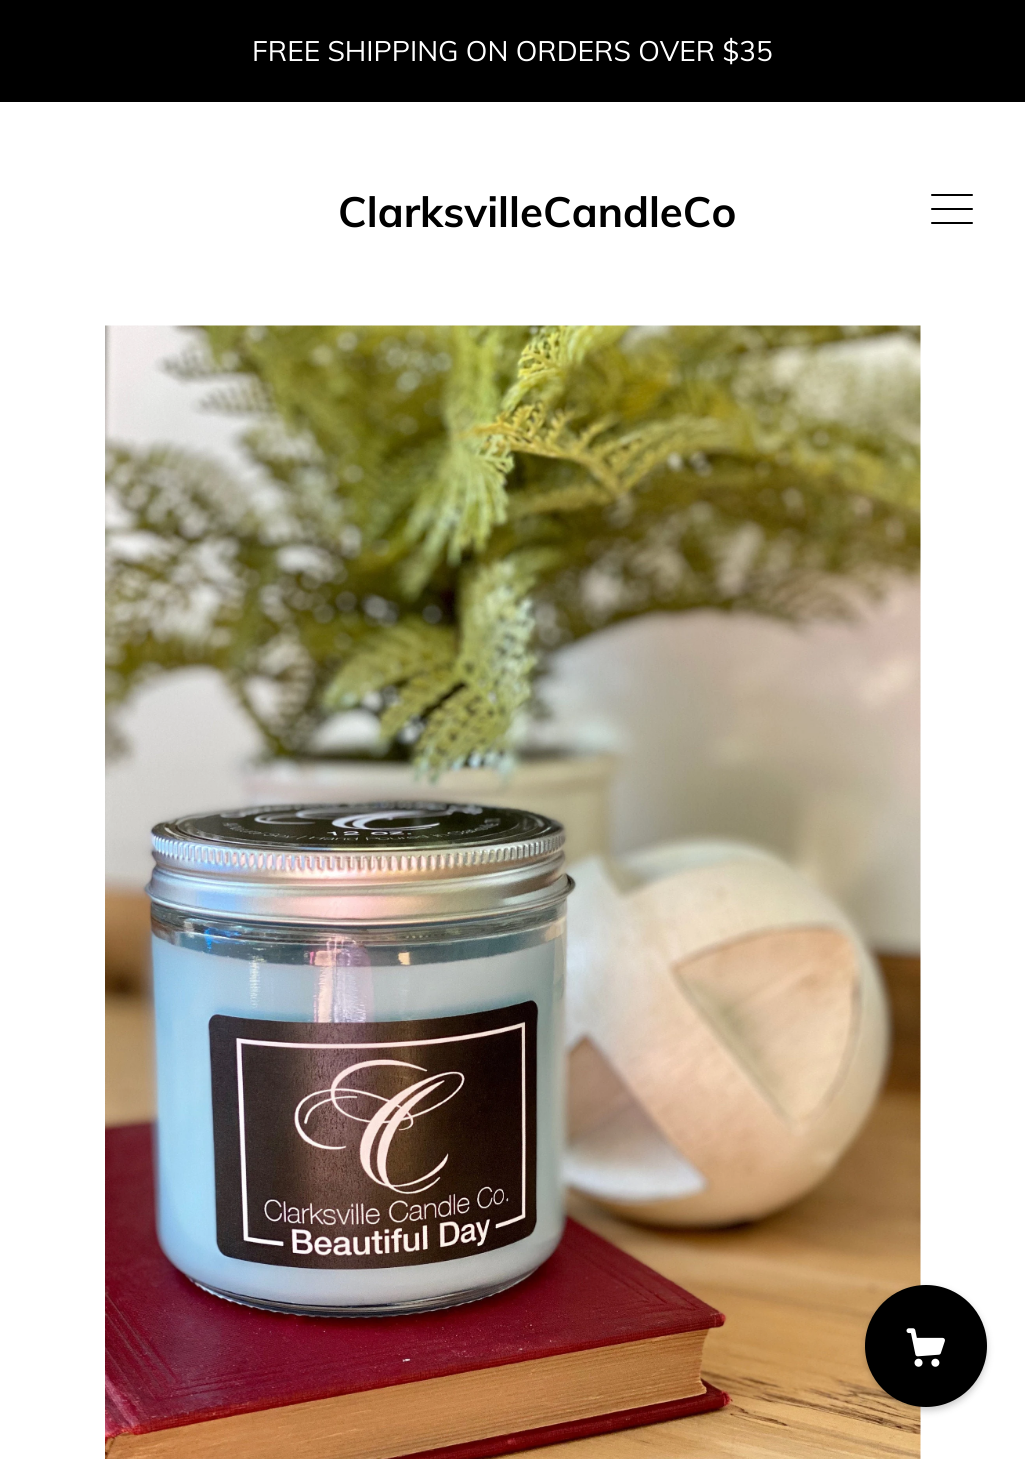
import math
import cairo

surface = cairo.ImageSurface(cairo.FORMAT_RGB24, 1025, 1459)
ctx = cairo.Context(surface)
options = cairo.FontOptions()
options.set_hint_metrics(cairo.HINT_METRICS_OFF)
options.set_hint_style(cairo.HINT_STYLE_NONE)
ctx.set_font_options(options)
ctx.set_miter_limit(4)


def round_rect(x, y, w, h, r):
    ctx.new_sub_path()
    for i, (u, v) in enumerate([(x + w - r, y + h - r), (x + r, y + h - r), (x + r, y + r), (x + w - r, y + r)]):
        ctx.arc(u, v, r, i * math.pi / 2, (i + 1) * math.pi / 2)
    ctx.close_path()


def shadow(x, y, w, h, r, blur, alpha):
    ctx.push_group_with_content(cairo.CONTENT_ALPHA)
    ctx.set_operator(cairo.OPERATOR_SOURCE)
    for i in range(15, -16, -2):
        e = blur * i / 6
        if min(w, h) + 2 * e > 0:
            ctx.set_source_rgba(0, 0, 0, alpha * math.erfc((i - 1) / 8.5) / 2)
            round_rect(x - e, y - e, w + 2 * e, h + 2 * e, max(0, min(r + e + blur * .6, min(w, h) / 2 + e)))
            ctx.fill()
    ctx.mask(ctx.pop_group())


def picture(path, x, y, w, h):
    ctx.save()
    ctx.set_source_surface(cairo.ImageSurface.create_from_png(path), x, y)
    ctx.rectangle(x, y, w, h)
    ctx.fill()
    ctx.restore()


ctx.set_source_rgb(1, 1, 1)
ctx.paint()
ctx.set_source_rgb(0, 0, 0)
ctx.rectangle(0, 0, 1025, 102)
ctx.fill()
ctx.select_font_face("Muli")
ctx.set_font_size(28)
ctx.set_source_rgb(1, 1, 1)
ctx.move_to(252, 61)
ctx.show_text("FREE SHIPPING ON ORDERS OVER $35")
ctx.select_font_face("Muli", cairo.FONT_SLANT_NORMAL, cairo.FONT_WEIGHT_BOLD)
ctx.set_font_size(42)
ctx.set_source_rgb(0, 0, 0)
ctx.move_to(338, 227)
ctx.show_text("ClarksvilleCandleCo")
round_rect(931, 194, 42, 2, 1)
ctx.fill()
round_rect(931, 208, 42, 2, 1)
ctx.fill()
round_rect(931, 222, 42, 2, 1)
ctx.fill()
picture("img1.png", 105, 325, 816, 1134)
ctx.set_source_rgb(0, 0, 0)
shadow(865, 1288, 122, 123, 61, 3.5, 0.2)
ctx.set_source_rgb(0, 0, 0)
ctx.arc(926, 1346, 61, 0, 2 * math.pi)
ctx.fill()
picture("img2.png", 906, 1328, 39, 39)
surface.write_to_png("page.png")
